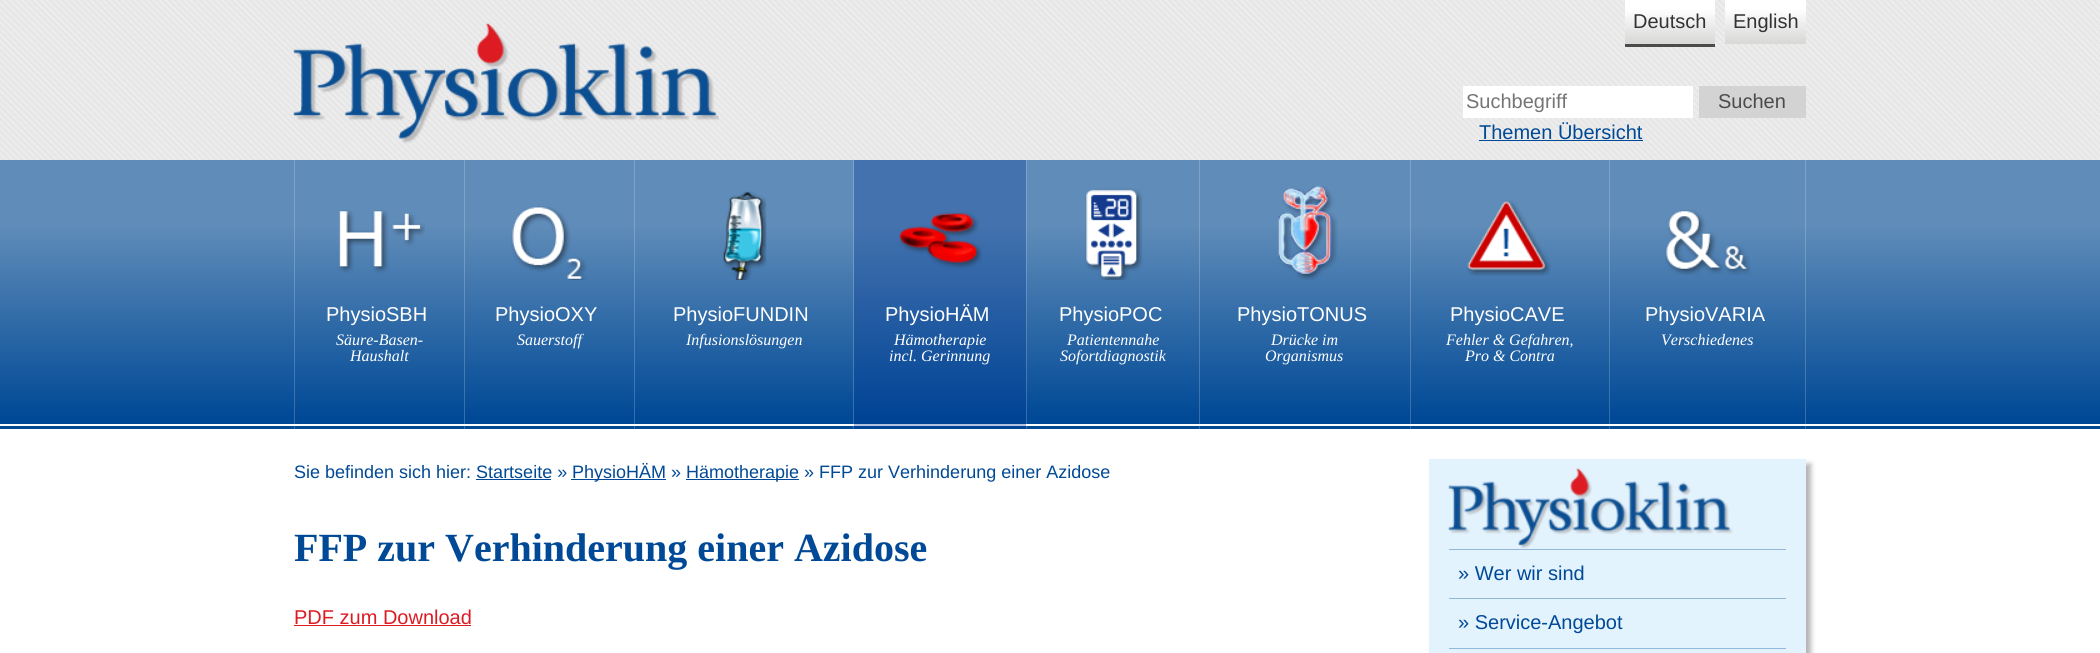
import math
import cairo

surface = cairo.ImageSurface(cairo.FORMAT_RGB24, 2100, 653)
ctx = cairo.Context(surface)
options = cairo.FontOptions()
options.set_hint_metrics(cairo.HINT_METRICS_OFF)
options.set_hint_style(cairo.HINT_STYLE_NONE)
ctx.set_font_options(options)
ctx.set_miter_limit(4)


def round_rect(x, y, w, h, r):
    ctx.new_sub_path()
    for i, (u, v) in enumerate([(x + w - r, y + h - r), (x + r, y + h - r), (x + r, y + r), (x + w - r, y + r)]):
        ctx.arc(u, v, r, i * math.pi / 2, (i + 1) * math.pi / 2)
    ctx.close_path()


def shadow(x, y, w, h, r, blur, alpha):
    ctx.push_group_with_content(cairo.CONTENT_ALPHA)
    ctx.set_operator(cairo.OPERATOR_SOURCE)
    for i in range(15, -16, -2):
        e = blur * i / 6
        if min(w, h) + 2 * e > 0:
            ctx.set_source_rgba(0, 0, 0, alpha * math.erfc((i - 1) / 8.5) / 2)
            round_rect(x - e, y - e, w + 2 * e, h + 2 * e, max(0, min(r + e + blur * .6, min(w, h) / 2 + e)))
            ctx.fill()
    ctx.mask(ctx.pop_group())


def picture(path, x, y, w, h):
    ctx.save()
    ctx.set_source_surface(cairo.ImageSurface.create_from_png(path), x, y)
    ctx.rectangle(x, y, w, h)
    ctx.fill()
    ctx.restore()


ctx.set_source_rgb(1, 1, 1)
ctx.paint()
ctx.set_source_rgb(0.702, 0.761, 0.875)
ctx.rectangle(854, 424, 172, 2)
ctx.fill()
picture("img1.png", 0, 0, 2100, 160)
picture("img2.png", 293, 23, 426, 121)
gradient = cairo.LinearGradient(1625, 44, 1625, 0)
gradient.add_color_stop_rgba(0.04, 0.851, 0.851, 0.847, 1)
gradient.add_color_stop_rgba(0.8, 1, 1, 1, 1)
ctx.set_source(gradient)
ctx.rectangle(1625, 0, 90, 44)
ctx.fill()
ctx.set_source_rgb(0.294, 0.294, 0.294)
ctx.rectangle(1625, 44, 90, 3)
ctx.fill()
ctx.select_font_face("Liberation Sans")
ctx.set_font_size(20)
ctx.set_source_rgb(0.2, 0.2, 0.2)
ctx.move_to(1633, 28)
ctx.show_text("Deutsch")
gradient = cairo.LinearGradient(1725, 44, 1725, 0)
gradient.add_color_stop_rgba(0.04, 0.851, 0.851, 0.847, 1)
gradient.add_color_stop_rgba(0.8, 1, 1, 1, 1)
ctx.set_source(gradient)
ctx.rectangle(1725, 0, 81, 44)
ctx.fill()
ctx.set_source_rgb(0.2, 0.2, 0.2)
ctx.move_to(1733, 28)
ctx.show_text("English")
ctx.set_source_rgb(1, 1, 1)
ctx.rectangle(1463, 86, 230, 32)
ctx.fill()
ctx.set_source_rgb(0.459, 0.459, 0.459)
ctx.move_to(1466, 108)
ctx.show_text("Suchbegriff")
ctx.set_source_rgb(0.827, 0.827, 0.827)
ctx.rectangle(1699, 86, 107, 32)
ctx.fill()
ctx.set_source_rgb(0.294, 0.294, 0.294)
ctx.move_to(1718, 108)
ctx.show_text("Suchen")
ctx.set_source_rgb(0, 0.286, 0.588)
ctx.move_to(1479, 139)
ctx.show_text("Themen Übersicht")
ctx.rectangle(1479, 140, 164, 1)
ctx.fill()
gradient = cairo.LinearGradient(0, 424, 0, 160)
gradient.add_color_stop_rgba(0.02, 0, 0.286, 0.588, 1)
gradient.add_color_stop_rgba(0.75, 0.373, 0.549, 0.725, 1)
ctx.set_source(gradient)
ctx.rectangle(0, 160, 2100, 264)
ctx.fill()
gradient = cairo.LinearGradient(0, 424, 0, 160)
gradient.add_color_stop_rgba(0.02, 0.2, 0.427, 0.671, 1)
gradient.add_color_stop_rgba(0.75, 0.498, 0.639, 0.78, 1)
ctx.set_source(gradient)
ctx.rectangle(1805, 160, 1, 264)
ctx.fill()
ctx.rectangle(1609, 160, 1, 264)
ctx.fill()
ctx.rectangle(1410, 160, 1, 264)
ctx.fill()
ctx.rectangle(1199, 160, 1, 264)
ctx.fill()
gradient = cairo.LinearGradient(0, 424, 0, 160)
gradient.add_color_stop_rgba(0.02, 0, 0.263, 0.584, 1)
gradient.add_color_stop_rgba(0.75, 0.263, 0.447, 0.682, 1)
ctx.set_source(gradient)
ctx.rectangle(854, 160, 172, 264)
ctx.fill()
gradient = cairo.LinearGradient(0, 424, 0, 160)
gradient.add_color_stop_rgba(0.02, 0.2, 0.427, 0.671, 1)
gradient.add_color_stop_rgba(0.75, 0.498, 0.639, 0.78, 1)
ctx.set_source(gradient)
ctx.rectangle(1026, 160, 1, 264)
ctx.fill()
ctx.rectangle(853, 160, 1, 264)
ctx.fill()
ctx.rectangle(634, 160, 1, 264)
ctx.fill()
ctx.rectangle(294, 160, 1, 264)
ctx.fill()
ctx.rectangle(464, 160, 1, 264)
ctx.fill()
picture("img3.png", 338, 210, 87, 63)
ctx.set_source_rgb(1, 1, 1)
ctx.move_to(326, 321)
ctx.show_text("PhysioSBH")
ctx.select_font_face("Liberation Serif", cairo.FONT_SLANT_ITALIC)
ctx.set_font_size(16)
ctx.move_to(336, 345)
ctx.show_text("Säure-Basen-")
ctx.move_to(350, 361)
ctx.show_text("Haushalt")
picture("img4.png", 511, 206, 76, 74)
ctx.select_font_face("Liberation Sans")
ctx.set_font_size(20)
ctx.move_to(495, 321)
ctx.show_text("PhysioOXY")
ctx.select_font_face("Liberation Serif", cairo.FONT_SLANT_ITALIC)
ctx.set_font_size(16)
ctx.move_to(517, 345)
ctx.show_text("Sauerstoff")
picture("img5.png", 723, 191, 44, 89)
ctx.select_font_face("Liberation Sans")
ctx.set_font_size(20)
ctx.move_to(673, 321)
ctx.show_text("PhysioFUNDIN")
ctx.select_font_face("Liberation Serif", cairo.FONT_SLANT_ITALIC)
ctx.set_font_size(16)
ctx.move_to(686, 345)
ctx.show_text("Infusionslösungen")
picture("img6.png", 899, 212, 83, 57)
ctx.select_font_face("Liberation Sans")
ctx.set_font_size(20)
ctx.move_to(885, 321)
ctx.show_text("PhysioHÄM")
ctx.select_font_face("Liberation Serif", cairo.FONT_SLANT_ITALIC)
ctx.set_font_size(16)
ctx.move_to(894, 345)
ctx.show_text("Hämotherapie")
ctx.move_to(889, 361)
ctx.show_text("incl. Gerinnung")
picture("img7.png", 1085, 188, 58, 92)
ctx.select_font_face("Liberation Sans")
ctx.set_font_size(20)
ctx.move_to(1059, 321)
ctx.show_text("PhysioPOC")
ctx.select_font_face("Liberation Serif", cairo.FONT_SLANT_ITALIC)
ctx.set_font_size(16)
ctx.move_to(1067, 345)
ctx.show_text("Patientennahe")
ctx.move_to(1060, 361)
ctx.show_text("Sofortdiagnostik")
picture("img8.png", 1278, 186, 60, 94)
ctx.select_font_face("Liberation Sans")
ctx.set_font_size(20)
ctx.move_to(1237, 321)
ctx.show_text("PhysioTONUS")
ctx.select_font_face("Liberation Serif", cairo.FONT_SLANT_ITALIC)
ctx.set_font_size(16)
ctx.move_to(1271, 345)
ctx.show_text("Drücke im")
ctx.move_to(1265, 361)
ctx.show_text("Organismus")
picture("img9.png", 1467, 200, 84, 76)
ctx.select_font_face("Liberation Sans")
ctx.set_font_size(20)
ctx.move_to(1450, 321)
ctx.show_text("PhysioCAVE")
ctx.select_font_face("Liberation Serif", cairo.FONT_SLANT_ITALIC)
ctx.set_font_size(16)
ctx.move_to(1446, 345)
ctx.show_text("Fehler & Gefahren,")
ctx.move_to(1465, 361)
ctx.show_text("Pro & Contra")
picture("img10.png", 1665, 209, 86, 66)
ctx.select_font_face("Liberation Sans")
ctx.set_font_size(20)
ctx.move_to(1645, 321)
ctx.show_text("PhysioVARIA")
ctx.select_font_face("Liberation Serif", cairo.FONT_SLANT_ITALIC)
ctx.set_font_size(16)
ctx.move_to(1661, 345)
ctx.show_text("Verschiedenes")
ctx.set_source_rgb(0.004, 0.29, 0.588)
ctx.rectangle(0, 426, 2100, 3)
ctx.fill()
ctx.set_source_rgb(0.204, 0.431, 0.671)
ctx.rectangle(1805, 426, 1, 3)
ctx.fill()
ctx.rectangle(1609, 426, 1, 3)
ctx.fill()
ctx.rectangle(1410, 426, 1, 3)
ctx.fill()
ctx.rectangle(1199, 426, 1, 3)
ctx.fill()
ctx.set_source_rgb(0.004, 0.267, 0.584)
ctx.rectangle(854, 426, 172, 3)
ctx.fill()
ctx.set_source_rgb(0.204, 0.431, 0.671)
ctx.rectangle(1026, 426, 1, 3)
ctx.fill()
ctx.rectangle(853, 426, 1, 3)
ctx.fill()
ctx.rectangle(634, 426, 1, 3)
ctx.fill()
ctx.rectangle(294, 426, 1, 3)
ctx.fill()
ctx.rectangle(464, 426, 1, 3)
ctx.fill()
ctx.select_font_face("Liberation Sans")
ctx.set_font_size(18)
ctx.set_source_rgb(0, 0.286, 0.588)
ctx.move_to(294, 478)
ctx.show_text("Sie befinden sich hier: Startseite »")
ctx.rectangle(571, 479, 95, 1)
ctx.fill()
ctx.move_to(572, 478)
ctx.show_text("PhysioHÄM »")
ctx.rectangle(476, 479, 75, 1)
ctx.fill()
ctx.rectangle(686, 479, 113, 1)
ctx.fill()
ctx.move_to(686, 478)
ctx.show_text("Hämotherapie » FFP zur Verhinderung einer Azidose")
ctx.select_font_face("Liberation Serif", cairo.FONT_SLANT_NORMAL, cairo.FONT_WEIGHT_BOLD)
ctx.set_font_size(40)
ctx.move_to(294, 561)
ctx.show_text("FFP zur Verhinderung einer Azidose")
ctx.select_font_face("Liberation Sans")
ctx.set_font_size(20)
ctx.set_source_rgb(0.867, 0.106, 0.137)
ctx.move_to(294, 624)
ctx.show_text("PDF zum Download")
ctx.rectangle(294, 625, 177, 1)
ctx.fill()
ctx.set_source_rgb(0.706, 0.706, 0.706)
shadow(1434, 464, 377, 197, 0, 2.5, 1)
ctx.set_source_rgb(0.89, 0.953, 0.996)
ctx.rectangle(1429, 459, 377, 194)
ctx.fill()
picture("img11.png", 1448, 468, 285, 81)
ctx.set_source_rgb(0.58, 0.722, 0.855)
ctx.rectangle(1449, 549, 337, 1)
ctx.fill()
ctx.rectangle(1449, 598, 337, 1)
ctx.fill()
ctx.set_source_rgb(0, 0.286, 0.588)
ctx.move_to(1458, 580)
ctx.show_text("» Wer wir sind")
ctx.set_source_rgb(0.58, 0.722, 0.855)
ctx.rectangle(1449, 648, 337, 1)
ctx.fill()
ctx.set_source_rgb(0, 0.286, 0.588)
ctx.move_to(1458, 629)
ctx.show_text("» Service-Angebot")
surface.write_to_png("page.png")
